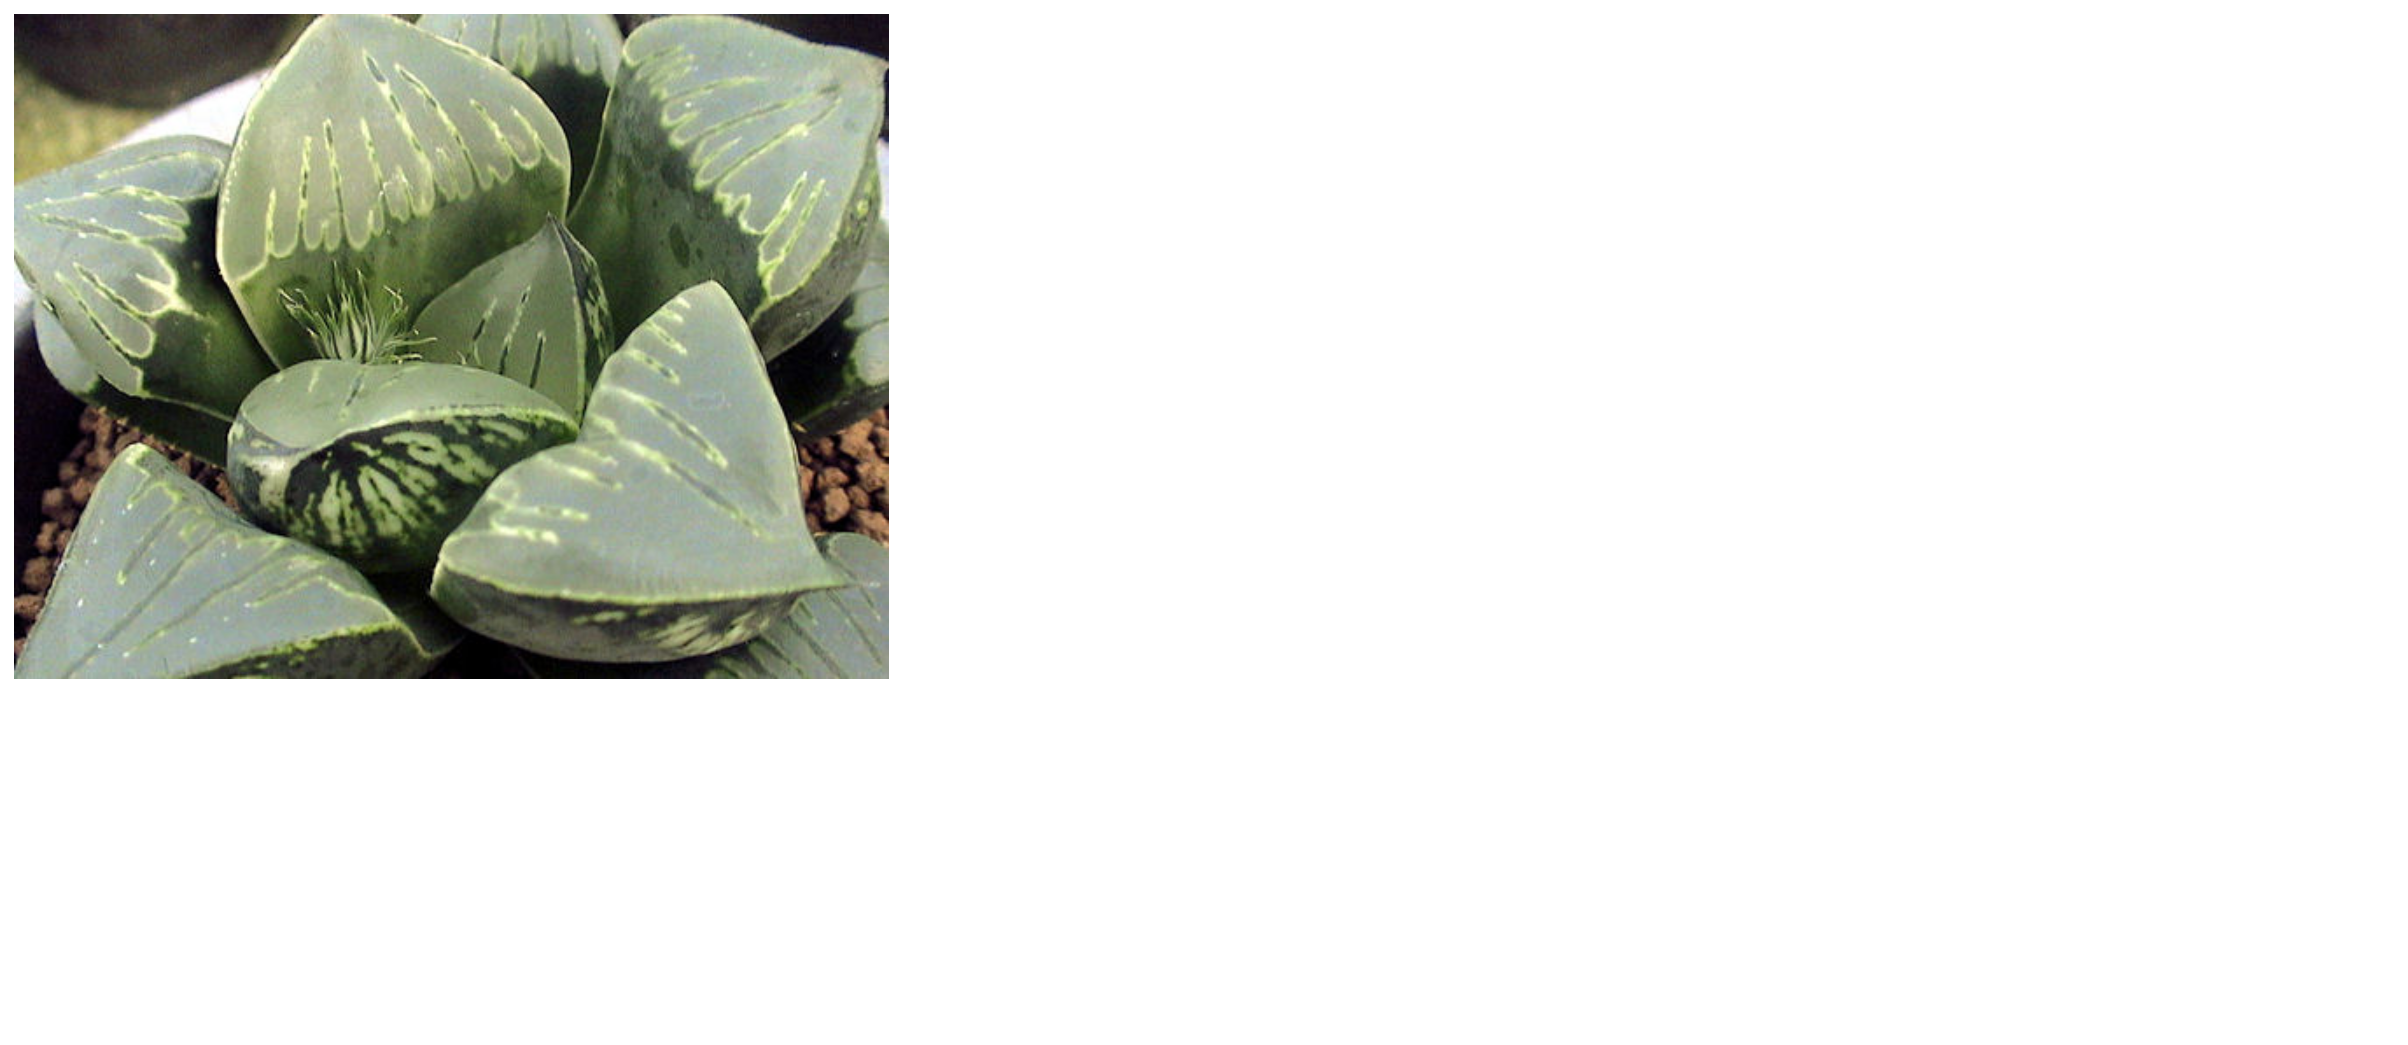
import math
import cairo

surface = cairo.ImageSurface(cairo.FORMAT_RGB24, 2408, 1045)
ctx = cairo.Context(surface)
options = cairo.FontOptions()
options.set_hint_metrics(cairo.HINT_METRICS_OFF)
options.set_hint_style(cairo.HINT_STYLE_NONE)
ctx.set_font_options(options)
ctx.set_miter_limit(4)


def picture(path, x, y, w, h):
    ctx.save()
    ctx.set_source_surface(cairo.ImageSurface.create_from_png(path), x, y)
    ctx.rectangle(x, y, w, h)
    ctx.fill()
    ctx.restore()


ctx.set_source_rgb(1, 1, 1)
ctx.paint()
picture("img1.png", 14, 14, 875, 665)
surface.write_to_png("page.png")
